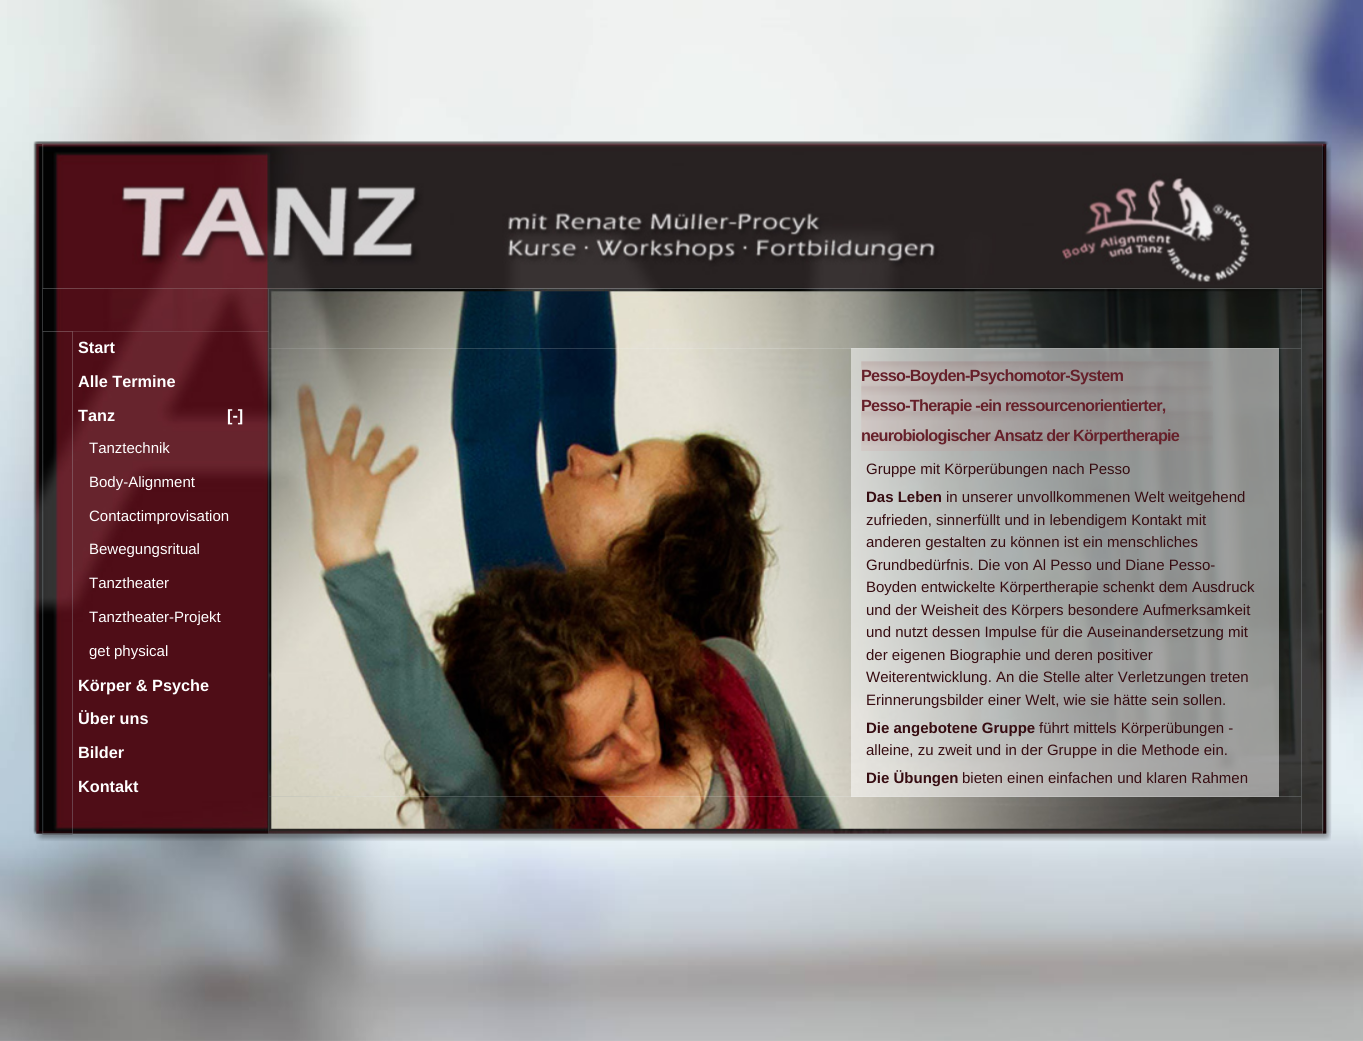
import math
import cairo

surface = cairo.ImageSurface(cairo.FORMAT_RGB24, 1363, 1041)
ctx = cairo.Context(surface)
options = cairo.FontOptions()
options.set_hint_metrics(cairo.HINT_METRICS_OFF)
options.set_hint_style(cairo.HINT_STYLE_NONE)
ctx.set_font_options(options)
ctx.set_miter_limit(4)


def spaced_text(x, y, s, letter, word):
    ctx.move_to(x, y)
    for ch in s:
        ctx.show_text(ch)
        ctx.rel_move_to(letter + word * (ch == ' '), 0)


def picture(path, x, y, w, h):
    ctx.save()
    ctx.set_source_surface(cairo.ImageSurface.create_from_png(path), x, y)
    ctx.rectangle(x, y, w, h)
    ctx.fill()
    ctx.restore()


ctx.set_source_rgb(1, 1, 1)
ctx.paint()
picture("img1.png", 0, 0, 1363, 1041)
picture("img2.png", 33, 141, 1296, 3)
picture("img3.png", 33, 143, 10, 691)
picture("img4.png", 42, 143, 1282, 147)
picture("img5.png", 1322, 143, 10, 691)
picture("img10.png", 72, 331, 197, 503)
picture("img6.png", 42, 288, 227, 44)
picture("img7.png", 268, 288, 1034, 61)
picture("img8.png", 1301, 288, 22, 546)
picture("img9.png", 42, 330, 31, 505)
ctx.select_font_face("Liberation Sans", cairo.FONT_SLANT_NORMAL, cairo.FONT_WEIGHT_BOLD)
ctx.set_font_size(16.25)
ctx.set_source_rgb(1, 1, 1)
ctx.move_to(78, 353)
ctx.show_text("Start")
ctx.move_to(78, 387)
ctx.show_text("Alle Termine")
ctx.move_to(78, 421)
ctx.show_text("Tanz")
ctx.move_to(227, 421)
ctx.show_text("[-]")
ctx.select_font_face("Liberation Sans")
ctx.set_font_size(15)
ctx.move_to(89, 453)
ctx.show_text("Tanztechnik")
ctx.move_to(89, 487)
ctx.show_text("Body-Alignment")
ctx.move_to(89, 521)
ctx.show_text("Contactimprovisation")
ctx.move_to(89, 554)
ctx.show_text("Bewegungsritual")
ctx.move_to(89, 588)
ctx.show_text("Tanztheater")
ctx.move_to(89, 622)
ctx.show_text("Tanztheater-Projekt")
ctx.move_to(89, 656)
ctx.show_text("get physical")
ctx.select_font_face("Liberation Sans", cairo.FONT_SLANT_NORMAL, cairo.FONT_WEIGHT_BOLD)
ctx.set_font_size(16.25)
ctx.move_to(78, 691)
ctx.show_text("Körper & Psyche")
ctx.move_to(78, 724)
ctx.show_text("Über uns")
ctx.move_to(78, 758)
ctx.show_text("Bilder")
ctx.move_to(78, 792)
ctx.show_text("Kontakt")
picture("img13.png", 268, 796, 1034, 38)
picture("img11.png", 268, 348, 1034, 449)
ctx.set_source_rgba(1, 1, 1, 0.52)
ctx.rectangle(851, 348, 428, 449)
ctx.fill()
picture("img12.png", 861, 361, 352, 90)
ctx.set_source_rgb(0.4, 0.125, 0.165)
spaced_text(861, 381, "Pesso-Boyden-Psychomotor-System", -0.75, 0)
spaced_text(861, 411, "Pesso-Therapie -ein ressourcenorientierter,", -0.75, 0)
spaced_text(861, 441, "neurobiologischer Ansatz der Körpertherapie", -0.75, 0)
ctx.select_font_face("Liberation Sans")
ctx.set_font_size(15)
ctx.set_source_rgb(0.212, 0.047, 0.067)
ctx.move_to(866, 474)
ctx.show_text("Gruppe mit Körperübungen nach Pesso")
ctx.select_font_face("Liberation Sans", cairo.FONT_SLANT_NORMAL, cairo.FONT_WEIGHT_BOLD)
ctx.move_to(866, 502)
ctx.show_text("Das Leben")
ctx.select_font_face("Liberation Sans")
ctx.move_to(946, 502)
ctx.show_text("in unserer unvollkommenen Welt weitgehend")
ctx.move_to(866, 525)
ctx.show_text("zufrieden, sinnerfüllt und in lebendigem Kontakt mit")
ctx.move_to(866, 547)
ctx.show_text("anderen gestalten zu können ist ein menschliches")
ctx.move_to(866, 570)
ctx.show_text("Grundbedürfnis. Die von Al Pesso und Diane Pesso-")
ctx.move_to(866, 592)
ctx.show_text("Boyden entwickelte Körpertherapie schenkt dem Ausdruck")
ctx.move_to(866, 615)
ctx.show_text("und der Weisheit des Körpers besondere Aufmerksamkeit")
ctx.move_to(866, 637)
ctx.show_text("und nutzt dessen Impulse für die Auseinandersetzung mit")
ctx.move_to(866, 660)
ctx.show_text("der eigenen Biographie und deren positiver")
ctx.move_to(866, 682)
ctx.show_text("Weiterentwicklung. An die Stelle alter Verletzungen treten")
ctx.move_to(866, 705)
ctx.show_text("Erinnerungsbilder einer Welt, wie sie hätte sein sollen.")
ctx.select_font_face("Liberation Sans", cairo.FONT_SLANT_NORMAL, cairo.FONT_WEIGHT_BOLD)
ctx.move_to(866, 733)
ctx.show_text("Die angebotene Gruppe")
ctx.select_font_face("Liberation Sans")
ctx.move_to(1039, 733)
ctx.show_text("führt mittels Körperübungen -")
ctx.move_to(866, 755)
ctx.show_text("alleine, zu zweit und in der Gruppe in die Methode ein.")
ctx.select_font_face("Liberation Sans", cairo.FONT_SLANT_NORMAL, cairo.FONT_WEIGHT_BOLD)
ctx.move_to(866, 783)
ctx.show_text("Die Übungen")
ctx.select_font_face("Liberation Sans")
ctx.move_to(962, 783)
ctx.show_text("bieten einen einfachen und klaren Rahmen")
picture("img14.png", 35, 833, 1296, 8)
surface.write_to_png("page.png")
